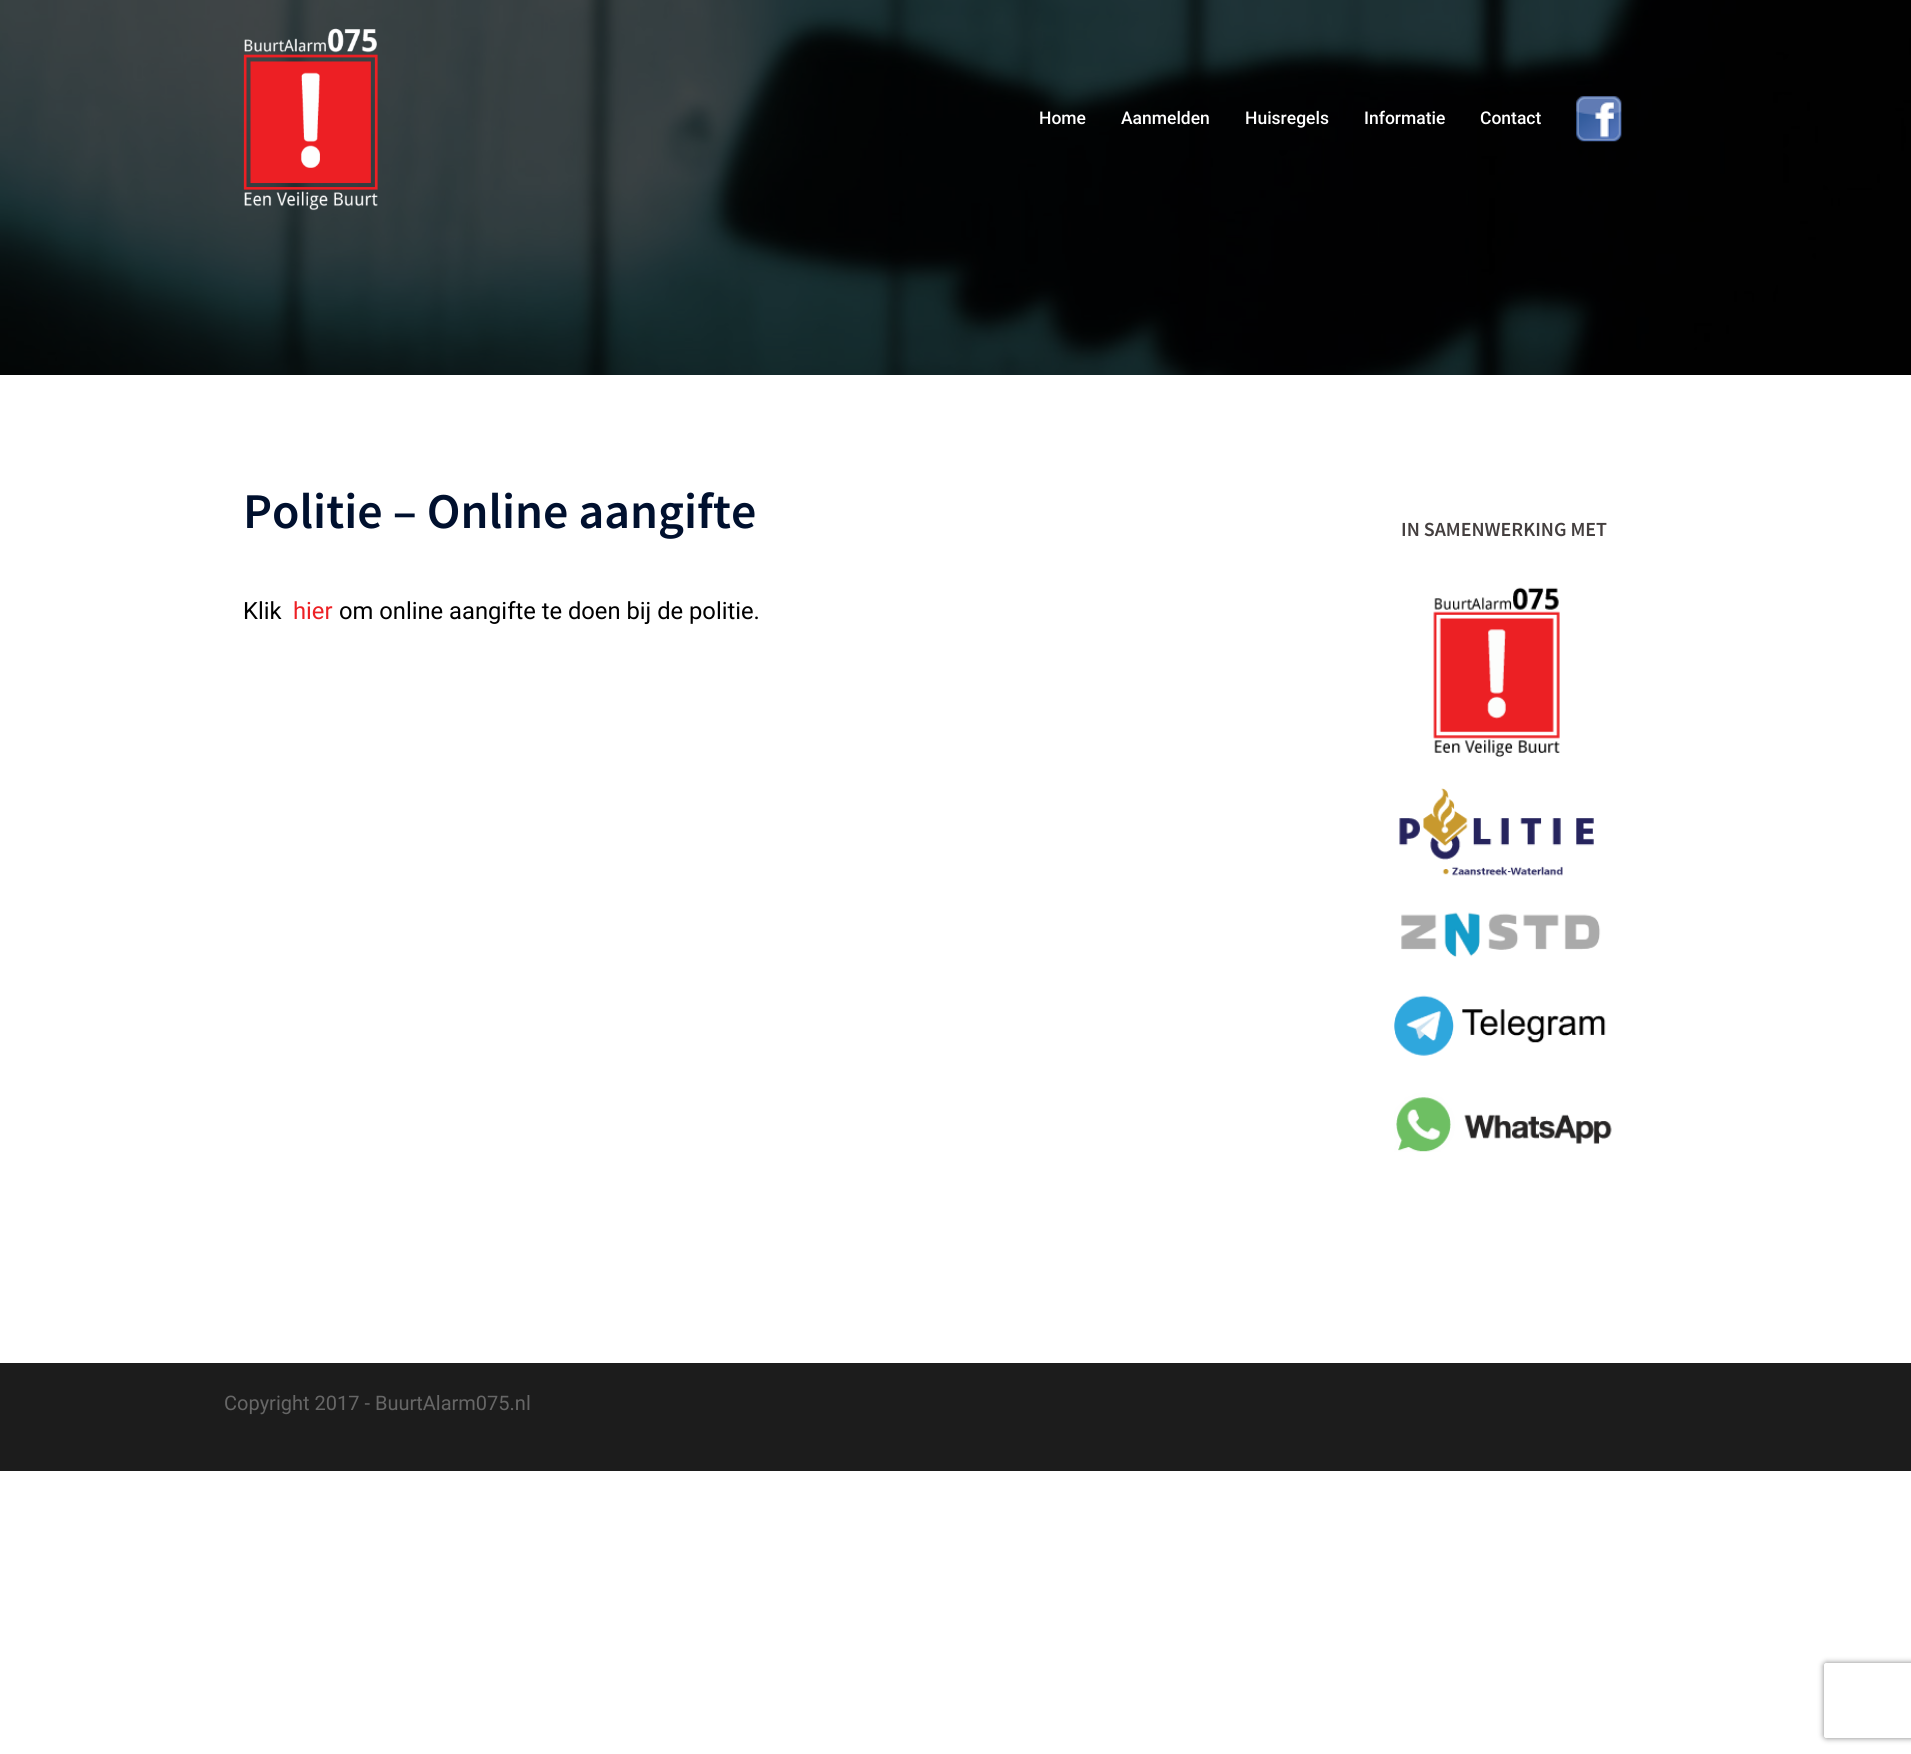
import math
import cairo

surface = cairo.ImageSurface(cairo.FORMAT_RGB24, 1911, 1754)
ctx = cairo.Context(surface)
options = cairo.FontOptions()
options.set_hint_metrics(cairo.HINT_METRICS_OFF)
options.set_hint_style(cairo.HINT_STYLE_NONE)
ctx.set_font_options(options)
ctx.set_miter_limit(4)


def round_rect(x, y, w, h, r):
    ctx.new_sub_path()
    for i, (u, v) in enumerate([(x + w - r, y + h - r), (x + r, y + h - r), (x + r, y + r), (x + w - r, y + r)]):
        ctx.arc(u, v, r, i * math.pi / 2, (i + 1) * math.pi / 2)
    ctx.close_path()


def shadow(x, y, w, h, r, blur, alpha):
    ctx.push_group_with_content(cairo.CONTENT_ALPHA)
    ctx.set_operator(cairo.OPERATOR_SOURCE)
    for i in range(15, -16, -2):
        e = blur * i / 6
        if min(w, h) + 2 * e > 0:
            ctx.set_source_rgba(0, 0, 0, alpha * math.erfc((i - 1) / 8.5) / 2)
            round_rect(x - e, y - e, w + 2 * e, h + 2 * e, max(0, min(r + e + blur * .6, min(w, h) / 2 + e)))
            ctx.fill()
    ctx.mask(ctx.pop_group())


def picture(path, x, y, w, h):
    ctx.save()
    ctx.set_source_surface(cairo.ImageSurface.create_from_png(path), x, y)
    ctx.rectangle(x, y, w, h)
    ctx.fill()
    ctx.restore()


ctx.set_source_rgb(1, 1, 1)
ctx.paint()
picture("img1.png", 0, 0, 1911, 375)
picture("img2.png", 243, 28, 135, 183)
ctx.select_font_face("Roboto Medium")
ctx.set_font_size(17.5)
ctx.set_source_rgb(1, 1, 1)
ctx.move_to(1039, 124)
ctx.show_text("Home")
ctx.move_to(1121, 124)
ctx.show_text("Aanmelden")
ctx.move_to(1245, 124)
ctx.show_text("Huisregels")
ctx.move_to(1364, 124)
ctx.show_text("Informatie")
ctx.move_to(1480, 124)
ctx.show_text("Contact")
picture("img3.png", 1576, 96, 46, 46)
ctx.select_font_face("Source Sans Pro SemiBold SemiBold")
ctx.set_font_size(50)
ctx.set_source_rgb(0, 0.063, 0.18)
ctx.move_to(243, 528)
ctx.show_text("Politie – Online aangifte")
ctx.select_font_face("Roboto")
ctx.set_font_size(23.75)
ctx.set_source_rgb(0, 0, 0)
ctx.move_to(243, 619)
ctx.show_text("Klik")
ctx.set_source_rgb(0.929, 0.125, 0.141)
ctx.move_to(293, 619)
ctx.show_text("hier")
ctx.set_source_rgb(0, 0, 0)
ctx.move_to(339, 619)
ctx.show_text("om online aangifte te doen bij de politie.")
ctx.select_font_face("Source Sans Pro SemiBold SemiBold")
ctx.set_font_size(20)
ctx.set_source_rgb(0.267, 0.247, 0.247)
ctx.move_to(1401, 536)
ctx.show_text("IN SAMENWERKING MET")
picture("img4.png", 1394, 587, 218, 565)
ctx.set_source_rgb(0.11, 0.11, 0.11)
ctx.rectangle(0, 1363, 1911, 108)
ctx.fill()
ctx.select_font_face("Roboto")
ctx.set_source_rgb(0.4, 0.4, 0.4)
ctx.move_to(224, 1410)
ctx.show_text("Copyright 2017 - BuurtAlarm075.nl")
ctx.save()
ctx.set_fill_rule(cairo.FILL_RULE_EVEN_ODD)
ctx.new_path()
ctx.move_to(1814, 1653)
ctx.line_to(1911, 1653)
ctx.line_to(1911, 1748)
ctx.line_to(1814, 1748)
ctx.close_path()
ctx.move_to(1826.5, 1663)
ctx.line_to(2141.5, 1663)
ctx.curve_to(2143, 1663, 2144, 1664, 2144, 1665.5)
ctx.line_to(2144, 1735.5)
ctx.curve_to(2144, 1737, 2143, 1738, 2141.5, 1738)
ctx.line_to(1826.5, 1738)
ctx.curve_to(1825, 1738, 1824, 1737, 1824, 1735.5)
ctx.line_to(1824, 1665.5)
ctx.curve_to(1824, 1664, 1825, 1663, 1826.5, 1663)
ctx.close_path()
ctx.clip()
ctx.set_source_rgb(0.502, 0.502, 0.502)
shadow(1824, 1663, 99, 75, 2.5, 3, 1)
ctx.restore()
surface.write_to_png("page.png")
